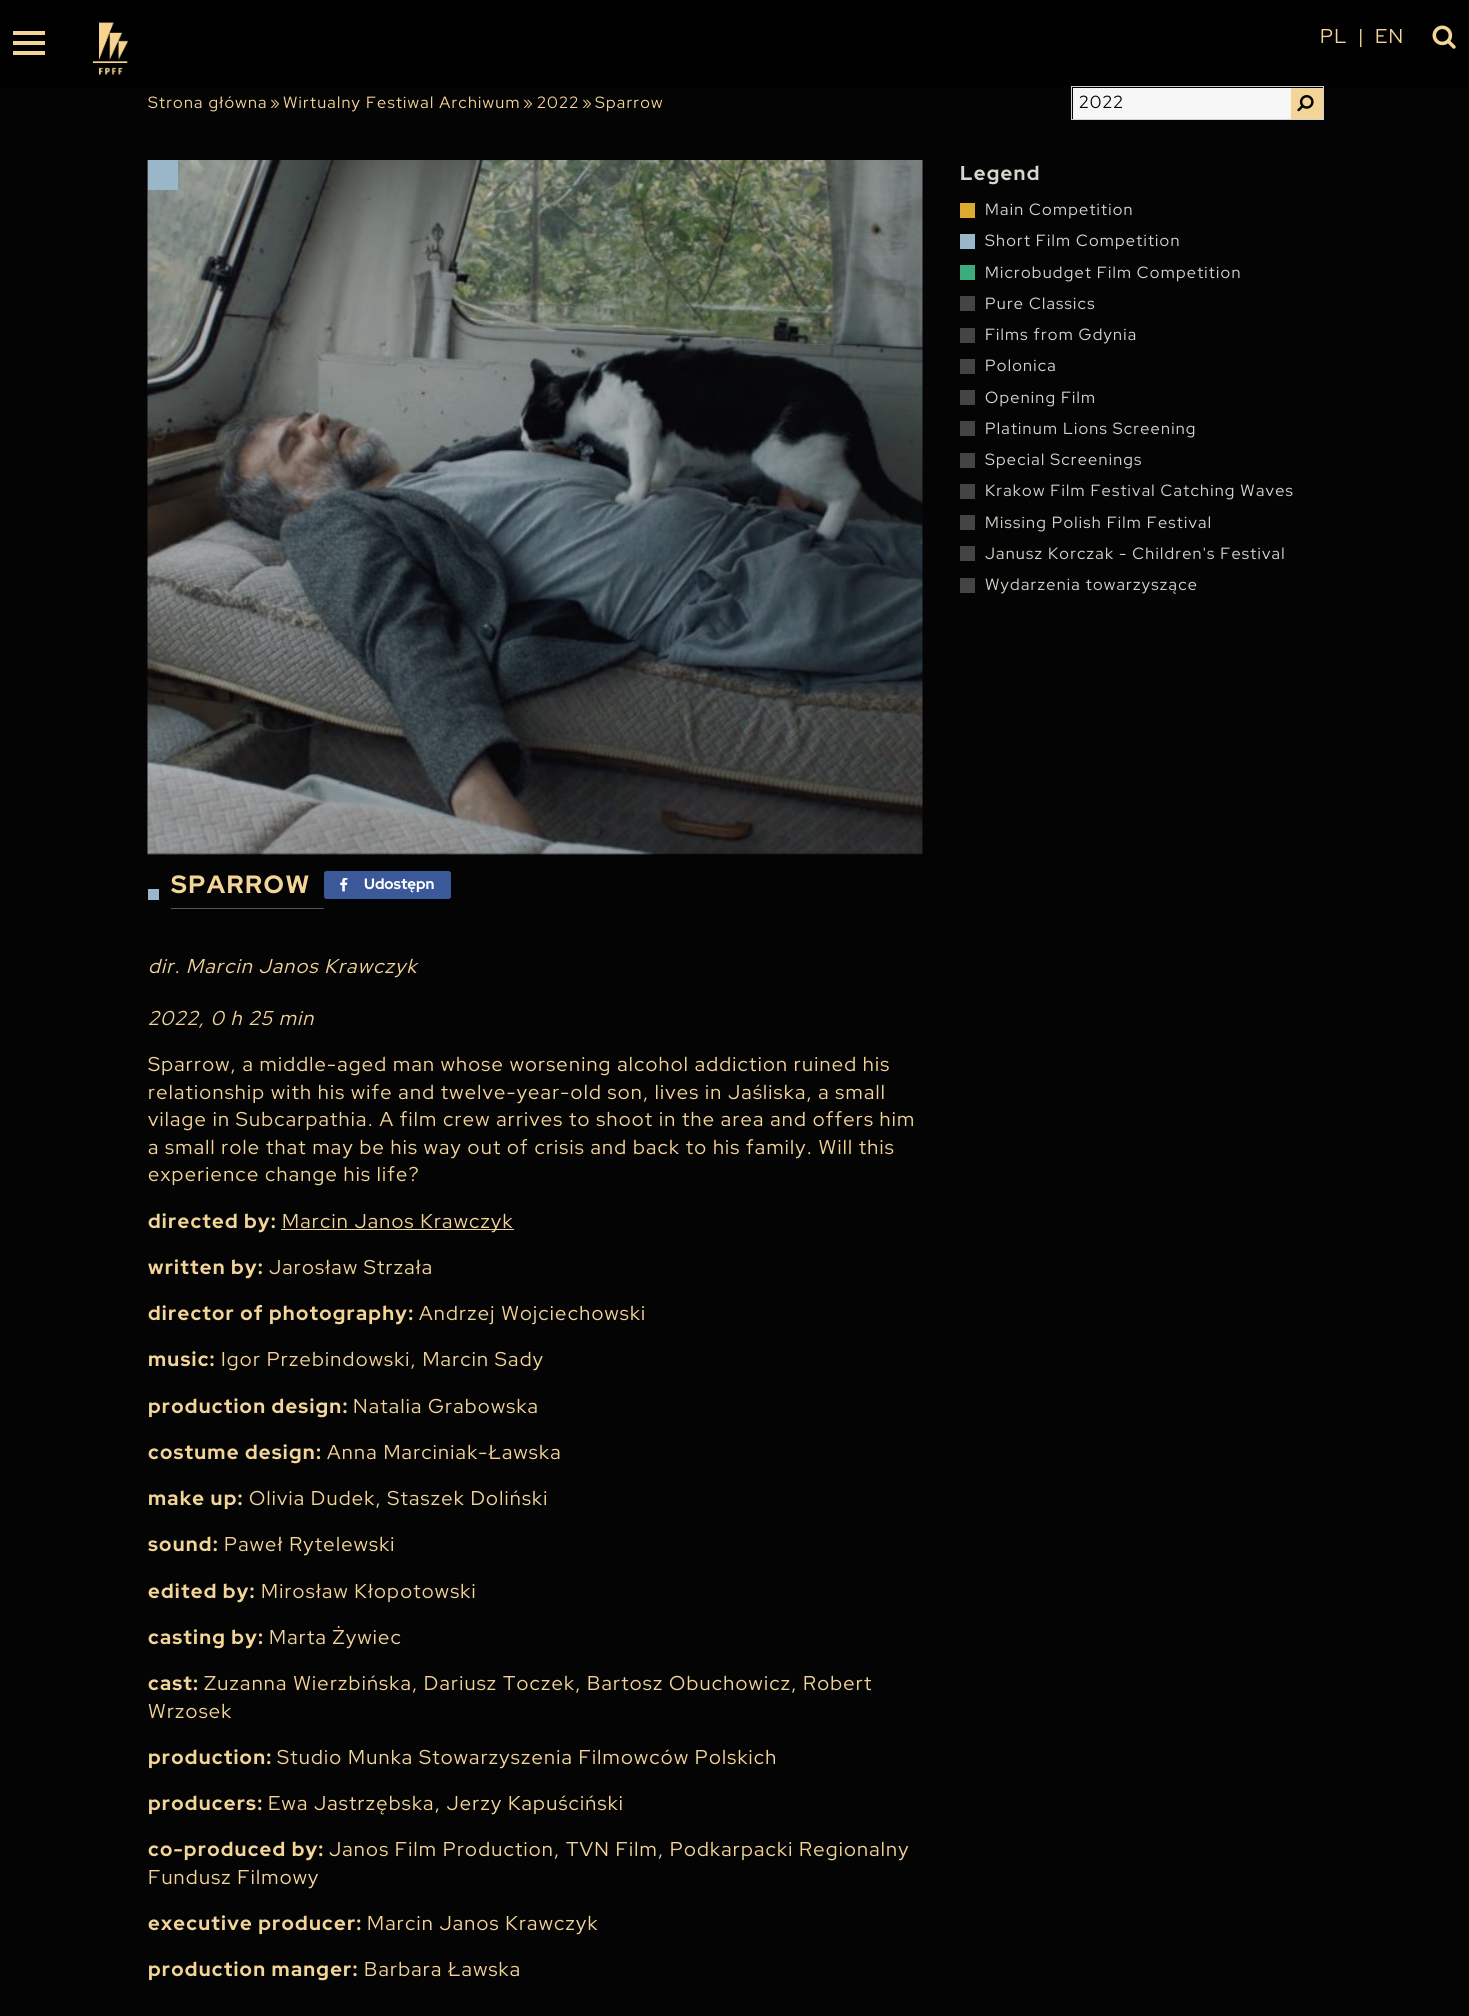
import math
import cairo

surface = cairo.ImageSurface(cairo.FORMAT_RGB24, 1469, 2016)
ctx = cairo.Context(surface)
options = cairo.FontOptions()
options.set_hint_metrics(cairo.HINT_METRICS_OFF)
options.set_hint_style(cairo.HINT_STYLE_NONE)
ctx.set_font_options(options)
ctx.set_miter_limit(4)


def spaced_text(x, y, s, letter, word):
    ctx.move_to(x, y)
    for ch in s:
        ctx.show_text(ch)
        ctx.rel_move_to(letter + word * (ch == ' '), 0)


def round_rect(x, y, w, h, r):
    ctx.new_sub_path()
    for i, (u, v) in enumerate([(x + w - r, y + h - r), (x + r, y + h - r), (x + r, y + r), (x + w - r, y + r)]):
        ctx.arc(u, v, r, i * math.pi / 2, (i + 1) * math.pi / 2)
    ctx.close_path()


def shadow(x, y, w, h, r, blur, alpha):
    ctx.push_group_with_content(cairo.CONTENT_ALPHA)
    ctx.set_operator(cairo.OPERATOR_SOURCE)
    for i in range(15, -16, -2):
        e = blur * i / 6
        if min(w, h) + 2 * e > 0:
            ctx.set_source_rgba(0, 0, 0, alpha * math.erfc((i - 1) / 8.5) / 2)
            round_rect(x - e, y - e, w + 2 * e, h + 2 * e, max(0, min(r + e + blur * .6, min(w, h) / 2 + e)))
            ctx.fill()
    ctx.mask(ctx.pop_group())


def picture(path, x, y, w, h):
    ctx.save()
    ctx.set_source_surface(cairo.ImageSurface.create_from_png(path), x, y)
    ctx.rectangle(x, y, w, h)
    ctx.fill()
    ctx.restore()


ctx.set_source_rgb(0.016, 0.016, 0.016)
ctx.paint()
ctx.set_source_rgb(0, 0, 0)
ctx.rectangle(0, 0, 1469, 88)
ctx.fill()
ctx.set_source_rgb(0.953, 0.835, 0.592)
ctx.rectangle(13, 51, 32, 4)
ctx.fill()
ctx.rectangle(13, 31, 32, 4)
ctx.fill()
ctx.rectangle(13, 41, 32, 4)
ctx.fill()
picture("img1.png", 92, 22, 37, 53)
ctx.save()
ctx.set_fill_rule(cairo.FILL_RULE_EVEN_ODD)
ctx.new_path()
ctx.move_to(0, 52)
ctx.line_to(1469, 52)
ctx.line_to(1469, 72)
ctx.line_to(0, 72)
ctx.close_path()
ctx.move_to(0, 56)
ctx.line_to(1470, 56)
ctx.line_to(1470, 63)
ctx.line_to(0, 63)
ctx.close_path()
ctx.clip()
ctx.set_source_rgb(0, 0, 0)
shadow(0, 59, 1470, 6, 0, 2, 0.2)
ctx.restore()
picture("img2.png", 1432, 25, 24, 24)
ctx.select_font_face("Red Hat Display")
ctx.set_font_size(20)
spaced_text(1320, 43, "PL", 1.25, 0)
spaced_text(1358, 43, "|", 1.25, 0)
spaced_text(1375, 43, "EN", 1.25, 0)
ctx.set_font_size(16.25)
spaced_text(148, 108, "Strona główna", 1.25, 0)
spaced_text(270, 108, "»", 1.25, 0)
spaced_text(283, 108, "Wirtualny Festiwal Archiwum", 1.25, 0)
spaced_text(523, 108, "»", 1.25, 0)
spaced_text(537, 108, "2022", 1.25, 0)
spaced_text(582, 108, "»", 1.25, 0)
spaced_text(595, 108, "Sparrow", 1.25, 0)
ctx.rectangle(1071.5, 86.5, 252, 33)
ctx.set_source_rgb(0.824, 0.824, 0.824)
ctx.set_line_width(1)
ctx.stroke()
ctx.set_source_rgb(0.961, 0.961, 0.961)
ctx.rectangle(1073, 88, 218, 31)
ctx.fill()
ctx.set_font_size(17.5)
ctx.set_source_rgb(0.016, 0.016, 0.016)
spaced_text(1079, 108, "2022", 1.25, 0)
ctx.set_source_rgb(0.953, 0.835, 0.592)
ctx.rectangle(1291, 88, 32, 31)
ctx.fill()
picture("img3.png", 1297, 95, 17, 17)
ctx.select_font_face("Red Hat Display", cairo.FONT_SLANT_NORMAL, cairo.FONT_WEIGHT_BOLD)
ctx.set_font_size(20)
ctx.set_source_rgb(0.847, 0.835, 0.808)
spaced_text(960, 180, "Legend", 1.25, 0)
ctx.set_source_rgb(0.859, 0.667, 0.184)
ctx.rectangle(960, 203, 15, 15)
ctx.fill()
ctx.select_font_face("Red Hat Display")
ctx.set_font_size(16.25)
ctx.set_source_rgb(0.847, 0.835, 0.808)
spaced_text(985, 215, "Main Competition", 1.25, 0)
ctx.set_source_rgb(0.6, 0.718, 0.784)
ctx.rectangle(960, 234, 15, 15)
ctx.fill()
ctx.set_source_rgb(0.847, 0.835, 0.808)
spaced_text(985, 246, "Short Film Competition", 1.25, 0)
ctx.set_source_rgb(0.239, 0.675, 0.49)
ctx.rectangle(960, 265, 15, 15)
ctx.fill()
ctx.set_source_rgb(0.847, 0.835, 0.808)
spaced_text(985, 278, "Microbudget Film Competition", 1.25, 0)
ctx.set_source_rgb(0.267, 0.267, 0.267)
ctx.rectangle(960, 296, 15, 15)
ctx.fill()
ctx.set_source_rgb(0.847, 0.835, 0.808)
spaced_text(985, 309, "Pure Classics", 1.25, 0)
ctx.set_source_rgb(0.267, 0.267, 0.267)
ctx.rectangle(960, 328, 15, 15)
ctx.fill()
ctx.set_source_rgb(0.847, 0.835, 0.808)
spaced_text(985, 340, "Films from Gdynia", 1.25, 0)
ctx.set_source_rgb(0.267, 0.267, 0.267)
ctx.rectangle(960, 359, 15, 15)
ctx.fill()
ctx.set_source_rgb(0.847, 0.835, 0.808)
spaced_text(985, 371, "Polonica", 1.25, 0)
ctx.set_source_rgb(0.267, 0.267, 0.267)
ctx.rectangle(960, 390, 15, 15)
ctx.fill()
ctx.set_source_rgb(0.847, 0.835, 0.808)
spaced_text(985, 403, "Opening Film", 1.25, 0)
ctx.set_source_rgb(0.267, 0.267, 0.267)
ctx.rectangle(960, 421, 15, 15)
ctx.fill()
ctx.set_source_rgb(0.847, 0.835, 0.808)
spaced_text(985, 434, "Platinum Lions Screening", 1.25, 0)
ctx.set_source_rgb(0.267, 0.267, 0.267)
ctx.rectangle(960, 453, 15, 15)
ctx.fill()
ctx.set_source_rgb(0.847, 0.835, 0.808)
spaced_text(985, 465, "Special Screenings", 1.25, 0)
ctx.set_source_rgb(0.267, 0.267, 0.267)
ctx.rectangle(960, 484, 15, 15)
ctx.fill()
ctx.set_source_rgb(0.847, 0.835, 0.808)
spaced_text(985, 496, "Krakow Film Festival Catching Waves", 1.25, 0)
ctx.set_source_rgb(0.267, 0.267, 0.267)
ctx.rectangle(960, 515, 15, 15)
ctx.fill()
ctx.set_source_rgb(0.847, 0.835, 0.808)
spaced_text(985, 528, "Missing Polish Film Festival", 1.25, 0)
ctx.set_source_rgb(0.267, 0.267, 0.267)
ctx.rectangle(960, 546, 15, 15)
ctx.fill()
ctx.set_source_rgb(0.847, 0.835, 0.808)
spaced_text(985, 559, "Janusz Korczak - Children's Festival", 1.25, 0)
ctx.set_source_rgb(0.267, 0.267, 0.267)
ctx.rectangle(960, 578, 15, 15)
ctx.fill()
ctx.set_source_rgb(0.847, 0.835, 0.808)
spaced_text(985, 590, "Wydarzenia towarzyszące", 1.25, 0)
picture("img4.png", 147, 160, 776, 695)
ctx.set_source_rgb(0.6, 0.718, 0.784)
ctx.rectangle(148, 160, 30, 30)
ctx.fill()
ctx.select_font_face("Red Hat Display", cairo.FONT_SLANT_NORMAL, cairo.FONT_WEIGHT_BOLD)
ctx.set_font_size(25)
ctx.set_source_rgb(0.953, 0.835, 0.592)
spaced_text(171, 893, "SPARROW", 1.5, 0)
ctx.set_source_rgb(0.333, 0.333, 0.333)
ctx.rectangle(171, 908, 153, 1)
ctx.fill()
ctx.set_source_rgb(0.231, 0.349, 0.596)
round_rect(324, 871, 127, 28, 2.5)
ctx.fill()
picture("img5.png", 340, 878, 8, 14)
ctx.set_font_size(15)
ctx.set_source_rgb(1, 1, 1)
ctx.move_to(364, 889)
ctx.show_text("Udostępn")
ctx.set_source_rgb(0.6, 0.718, 0.784)
ctx.rectangle(148, 889, 11, 11)
ctx.fill()
ctx.select_font_face("Red Hat Display", cairo.FONT_SLANT_ITALIC)
ctx.set_font_size(20)
ctx.set_source_rgb(0.953, 0.835, 0.592)
spaced_text(148, 973, "dir.", 1.25, 0)
spaced_text(186, 973, "Marcin Janos Krawczyk", 1.25, 0)
spaced_text(148, 1025, "2022, 0 h 25 min", 1.25, 0)
ctx.select_font_face("Red Hat Display")
spaced_text(148, 1071, "Sparrow, a middle-aged man whose worsening alcohol addiction ruined his", 1.25, 0)
spaced_text(148, 1099, "relationship with his wife and twelve-year-old son, lives in Jaśliska, a small", 1.25, 0)
spaced_text(148, 1126, "vilage in Subcarpathia. A film crew arrives to shoot in the area and offers him", 1.25, 0)
spaced_text(148, 1154, "a small role that may be his way out of crisis and back to his family. Will this", 1.25, 0)
spaced_text(148, 1181, "experience change his life?", 1.25, 0)
ctx.select_font_face("Red Hat Display", cairo.FONT_SLANT_NORMAL, cairo.FONT_WEIGHT_BOLD)
spaced_text(148, 1228, "directed by:", 1.25, 0)
ctx.rectangle(281, 1229, 233, 1)
ctx.fill()
ctx.select_font_face("Red Hat Display")
spaced_text(282, 1228, "Marcin Janos Krawczyk", 1.25, 0)
ctx.select_font_face("Red Hat Display", cairo.FONT_SLANT_NORMAL, cairo.FONT_WEIGHT_BOLD)
spaced_text(148, 1274, "written by:", 1.25, 0)
ctx.select_font_face("Red Hat Display")
spaced_text(269, 1274, "Jarosław Strzała", 1.25, 0)
ctx.select_font_face("Red Hat Display", cairo.FONT_SLANT_NORMAL, cairo.FONT_WEIGHT_BOLD)
spaced_text(148, 1320, "director of photography:", 1.25, 0)
ctx.select_font_face("Red Hat Display")
spaced_text(419, 1320, "Andrzej Wojciechowski", 1.25, 0)
ctx.select_font_face("Red Hat Display", cairo.FONT_SLANT_NORMAL, cairo.FONT_WEIGHT_BOLD)
spaced_text(148, 1366, "music:", 1.25, 0)
ctx.select_font_face("Red Hat Display")
spaced_text(221, 1366, "Igor Przebindowski, Marcin Sady", 1.25, 0)
ctx.select_font_face("Red Hat Display", cairo.FONT_SLANT_NORMAL, cairo.FONT_WEIGHT_BOLD)
spaced_text(148, 1413, "production design:", 1.25, 0)
ctx.select_font_face("Red Hat Display")
spaced_text(353, 1413, "Natalia Grabowska", 1.25, 0)
ctx.select_font_face("Red Hat Display", cairo.FONT_SLANT_NORMAL, cairo.FONT_WEIGHT_BOLD)
spaced_text(148, 1459, "costume design:", 1.25, 0)
ctx.select_font_face("Red Hat Display")
spaced_text(327, 1459, "Anna Marciniak-Ławska", 1.25, 0)
ctx.select_font_face("Red Hat Display", cairo.FONT_SLANT_NORMAL, cairo.FONT_WEIGHT_BOLD)
spaced_text(148, 1505, "make up:", 1.25, 0)
ctx.select_font_face("Red Hat Display")
spaced_text(249, 1505, "Olivia Dudek, Staszek Doliński", 1.25, 0)
ctx.select_font_face("Red Hat Display", cairo.FONT_SLANT_NORMAL, cairo.FONT_WEIGHT_BOLD)
spaced_text(148, 1551, "sound:", 1.25, 0)
ctx.select_font_face("Red Hat Display")
spaced_text(224, 1551, "Paweł Rytelewski", 1.25, 0)
ctx.select_font_face("Red Hat Display", cairo.FONT_SLANT_NORMAL, cairo.FONT_WEIGHT_BOLD)
spaced_text(148, 1598, "edited by:", 1.25, 0)
ctx.select_font_face("Red Hat Display")
spaced_text(261, 1598, "Mirosław Kłopotowski", 1.25, 0)
ctx.select_font_face("Red Hat Display", cairo.FONT_SLANT_NORMAL, cairo.FONT_WEIGHT_BOLD)
spaced_text(148, 1644, "casting by:", 1.25, 0)
ctx.select_font_face("Red Hat Display")
spaced_text(269, 1644, "Marta Żywiec", 1.25, 0)
ctx.select_font_face("Red Hat Display", cairo.FONT_SLANT_NORMAL, cairo.FONT_WEIGHT_BOLD)
spaced_text(148, 1690, "cast:", 1.25, 0)
ctx.select_font_face("Red Hat Display")
spaced_text(204, 1690, "Zuzanna Wierzbińska, Dariusz Toczek, Bartosz Obuchowicz, Robert", 1.25, 0)
spaced_text(148, 1718, "Wrzosek", 1.25, 0)
ctx.select_font_face("Red Hat Display", cairo.FONT_SLANT_NORMAL, cairo.FONT_WEIGHT_BOLD)
spaced_text(148, 1764, "production:", 1.25, 0)
ctx.select_font_face("Red Hat Display")
spaced_text(277, 1764, "Studio Munka Stowarzyszenia Filmowców Polskich", 1.25, 0)
ctx.select_font_face("Red Hat Display", cairo.FONT_SLANT_NORMAL, cairo.FONT_WEIGHT_BOLD)
spaced_text(148, 1810, "producers:", 1.25, 0)
ctx.select_font_face("Red Hat Display")
spaced_text(268, 1810, "Ewa Jastrzębska, Jerzy Kapuściński", 1.25, 0)
ctx.select_font_face("Red Hat Display", cairo.FONT_SLANT_NORMAL, cairo.FONT_WEIGHT_BOLD)
spaced_text(148, 1856, "co-produced by:", 1.25, 0)
ctx.select_font_face("Red Hat Display")
spaced_text(329, 1856, "Janos Film Production, TVN Film, Podkarpacki Regionalny", 1.25, 0)
spaced_text(148, 1884, "Fundusz Filmowy", 1.25, 0)
ctx.select_font_face("Red Hat Display", cairo.FONT_SLANT_NORMAL, cairo.FONT_WEIGHT_BOLD)
spaced_text(148, 1930, "executive producer:", 1.25, 0)
ctx.select_font_face("Red Hat Display")
spaced_text(367, 1930, "Marcin Janos Krawczyk", 1.25, 0)
ctx.select_font_face("Red Hat Display", cairo.FONT_SLANT_NORMAL, cairo.FONT_WEIGHT_BOLD)
spaced_text(148, 1976, "production manger:", 1.25, 0)
ctx.select_font_face("Red Hat Display")
spaced_text(364, 1976, "Barbara Ławska", 1.25, 0)
surface.write_to_png("page.png")
